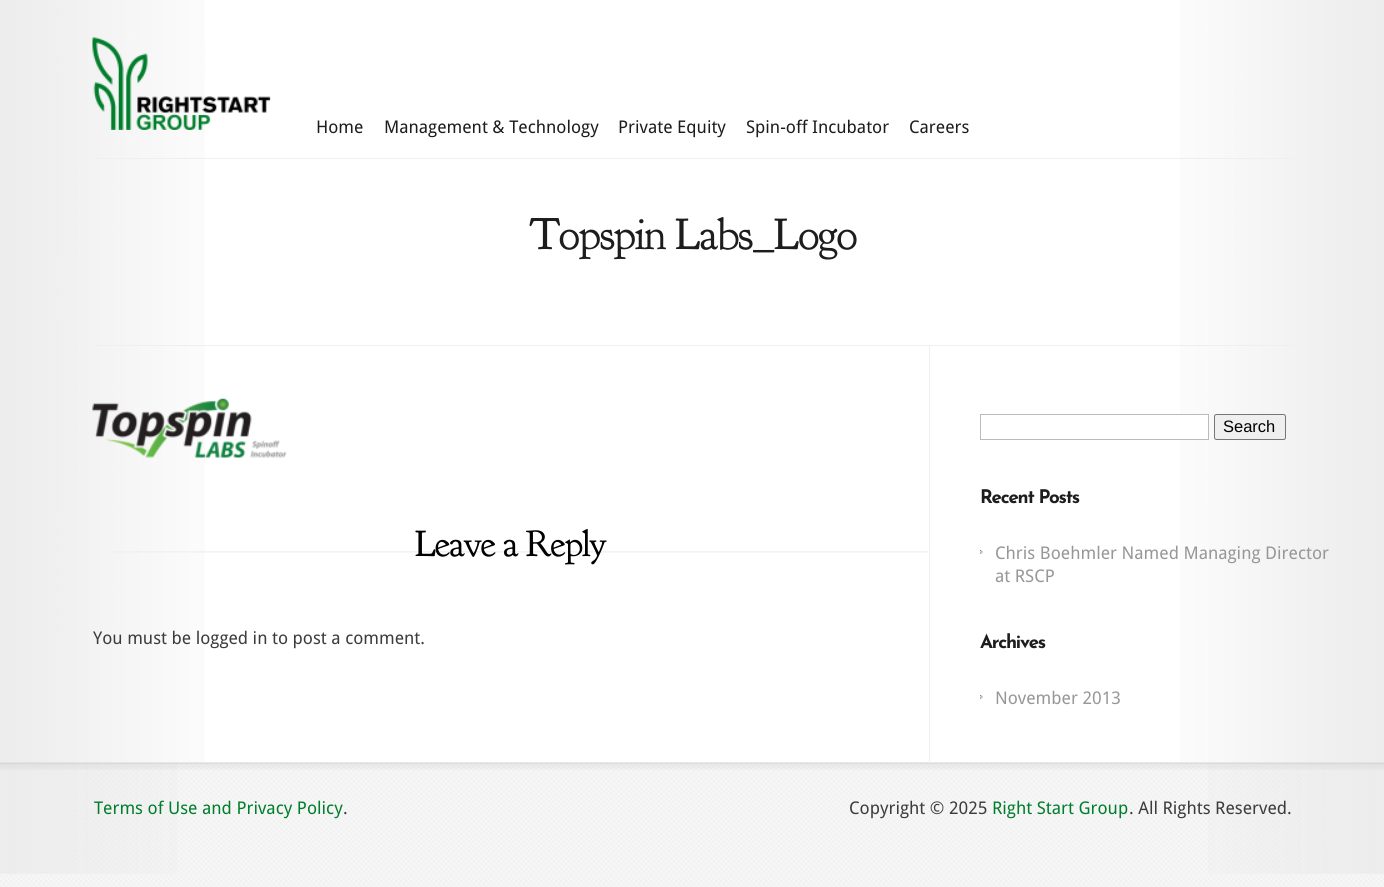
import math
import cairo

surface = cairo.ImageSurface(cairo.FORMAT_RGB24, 1384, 887)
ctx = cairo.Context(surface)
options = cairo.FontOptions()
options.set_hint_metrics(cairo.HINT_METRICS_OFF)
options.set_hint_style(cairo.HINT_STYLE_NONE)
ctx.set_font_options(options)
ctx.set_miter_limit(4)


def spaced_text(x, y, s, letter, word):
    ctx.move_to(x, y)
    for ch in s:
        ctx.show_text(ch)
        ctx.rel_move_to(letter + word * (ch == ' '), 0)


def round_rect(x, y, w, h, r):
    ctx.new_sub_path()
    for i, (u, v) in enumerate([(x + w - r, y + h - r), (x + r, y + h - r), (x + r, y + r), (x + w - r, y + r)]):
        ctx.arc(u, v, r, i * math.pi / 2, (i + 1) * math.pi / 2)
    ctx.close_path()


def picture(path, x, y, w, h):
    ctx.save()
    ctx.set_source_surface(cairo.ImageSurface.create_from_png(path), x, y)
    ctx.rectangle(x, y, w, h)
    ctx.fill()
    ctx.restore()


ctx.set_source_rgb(1, 1, 1)
ctx.paint()
picture("img1.png", 0, 873, 1384, 14)
picture("img2.png", 1180, 0, 204, 763)
picture("img3.png", 0, 0, 205, 763)
ctx.set_source_rgb(0.937, 0.937, 0.937)
ctx.rectangle(93, 158, 1200, 1)
ctx.fill()
picture("img4.png", 92, 37, 179, 93)
ctx.select_font_face("Droid Sans")
ctx.set_font_size(17.5)
ctx.set_source_rgb(0.114, 0.114, 0.114)
ctx.move_to(316, 133)
ctx.show_text("Home")
ctx.move_to(384, 133)
ctx.show_text("Management & Technology")
ctx.move_to(618, 133)
ctx.show_text("Private Equity")
ctx.move_to(746, 133)
ctx.show_text("Spin-off Incubator")
ctx.move_to(909, 133)
ctx.show_text("Careers")
ctx.select_font_face("Goudy Bookletter 1911")
ctx.set_font_size(45)
spaced_text(529, 249, "Topspin Labs_Logo", -1.25, 0)
ctx.set_source_rgb(0.937, 0.937, 0.937)
ctx.rectangle(93, 345, 1200, 1)
ctx.fill()
picture("img8.png", 0, 762, 1384, 112)
picture("img9.png", 1208, 762, 176, 112)
picture("img10.png", 0, 762, 177, 112)
picture("img11.png", 0, 762, 1384, 8)
ctx.rectangle(929, 345, 1, 418)
ctx.fill()
picture("img5.png", 92, 398, 195, 60)
picture("img6.png", 112, 551, 817, 2)
ctx.set_font_size(37.5)
ctx.set_source_rgb(0, 0, 0)
spaced_text(415, 556, "Leave a Reply", -1.25, 0)
ctx.select_font_face("Droid Sans")
ctx.set_font_size(17.5)
ctx.set_source_rgb(0.235, 0.235, 0.235)
ctx.move_to(93, 644)
ctx.show_text("You must be logged in to post a comment.")
ctx.set_source_rgb(1, 1, 1)
ctx.rectangle(1180, 415, 28, 24)
ctx.fill()
ctx.rectangle(980.5, 414.5, 228, 25)
ctx.set_source_rgb(0.733, 0.733, 0.733)
ctx.set_line_width(1)
ctx.stroke()
ctx.set_source_rgb(0.937, 0.937, 0.937)
round_rect(1214.5, 414.5, 71, 25, 2)
ctx.fill_preserve()
ctx.set_source_rgb(0.463, 0.463, 0.463)
ctx.stroke()
ctx.select_font_face("Liberation Sans")
ctx.set_font_size(16.5)
ctx.set_source_rgb(0, 0, 0)
ctx.move_to(1223, 432)
ctx.show_text("Search")
ctx.select_font_face("Josefin Sans", cairo.FONT_SLANT_NORMAL, cairo.FONT_WEIGHT_BOLD)
ctx.set_font_size(18.75)
ctx.set_source_rgb(0.114, 0.114, 0.114)
spaced_text(980, 503, "Recent Posts", -1.25, 0)
picture("img7.png", 980, 550, 3, 4)
ctx.select_font_face("Droid Sans")
ctx.set_font_size(17.5)
ctx.set_source_rgb(0.592, 0.592, 0.592)
ctx.move_to(995, 559)
ctx.show_text("Chris Boehmler Named Managing Director")
ctx.move_to(995, 582)
ctx.show_text("at RSCP")
ctx.select_font_face("Josefin Sans", cairo.FONT_SLANT_NORMAL, cairo.FONT_WEIGHT_BOLD)
ctx.set_font_size(18.75)
ctx.set_source_rgb(0.114, 0.114, 0.114)
spaced_text(980, 648, "Archives", -1.25, 0)
picture("img7.png", 980, 695, 3, 4)
ctx.select_font_face("Droid Sans")
ctx.set_font_size(17.5)
ctx.set_source_rgb(0.592, 0.592, 0.592)
ctx.move_to(995, 704)
ctx.show_text("November 2013")
ctx.set_source_rgb(0, 0.494, 0.173)
ctx.move_to(94, 814)
ctx.show_text("Terms of Use and Privacy Policy")
ctx.set_source_rgb(0.235, 0.235, 0.235)
ctx.move_to(343, 814)
ctx.show_text(".")
ctx.move_to(849, 814)
ctx.show_text("Copyright © 2025")
ctx.set_source_rgb(0, 0.494, 0.173)
ctx.move_to(992, 814)
ctx.show_text("Right Start Group")
ctx.set_source_rgb(0.235, 0.235, 0.235)
ctx.move_to(1129, 814)
ctx.show_text(". All Rights Reserved.")
surface.write_to_png("page.png")
